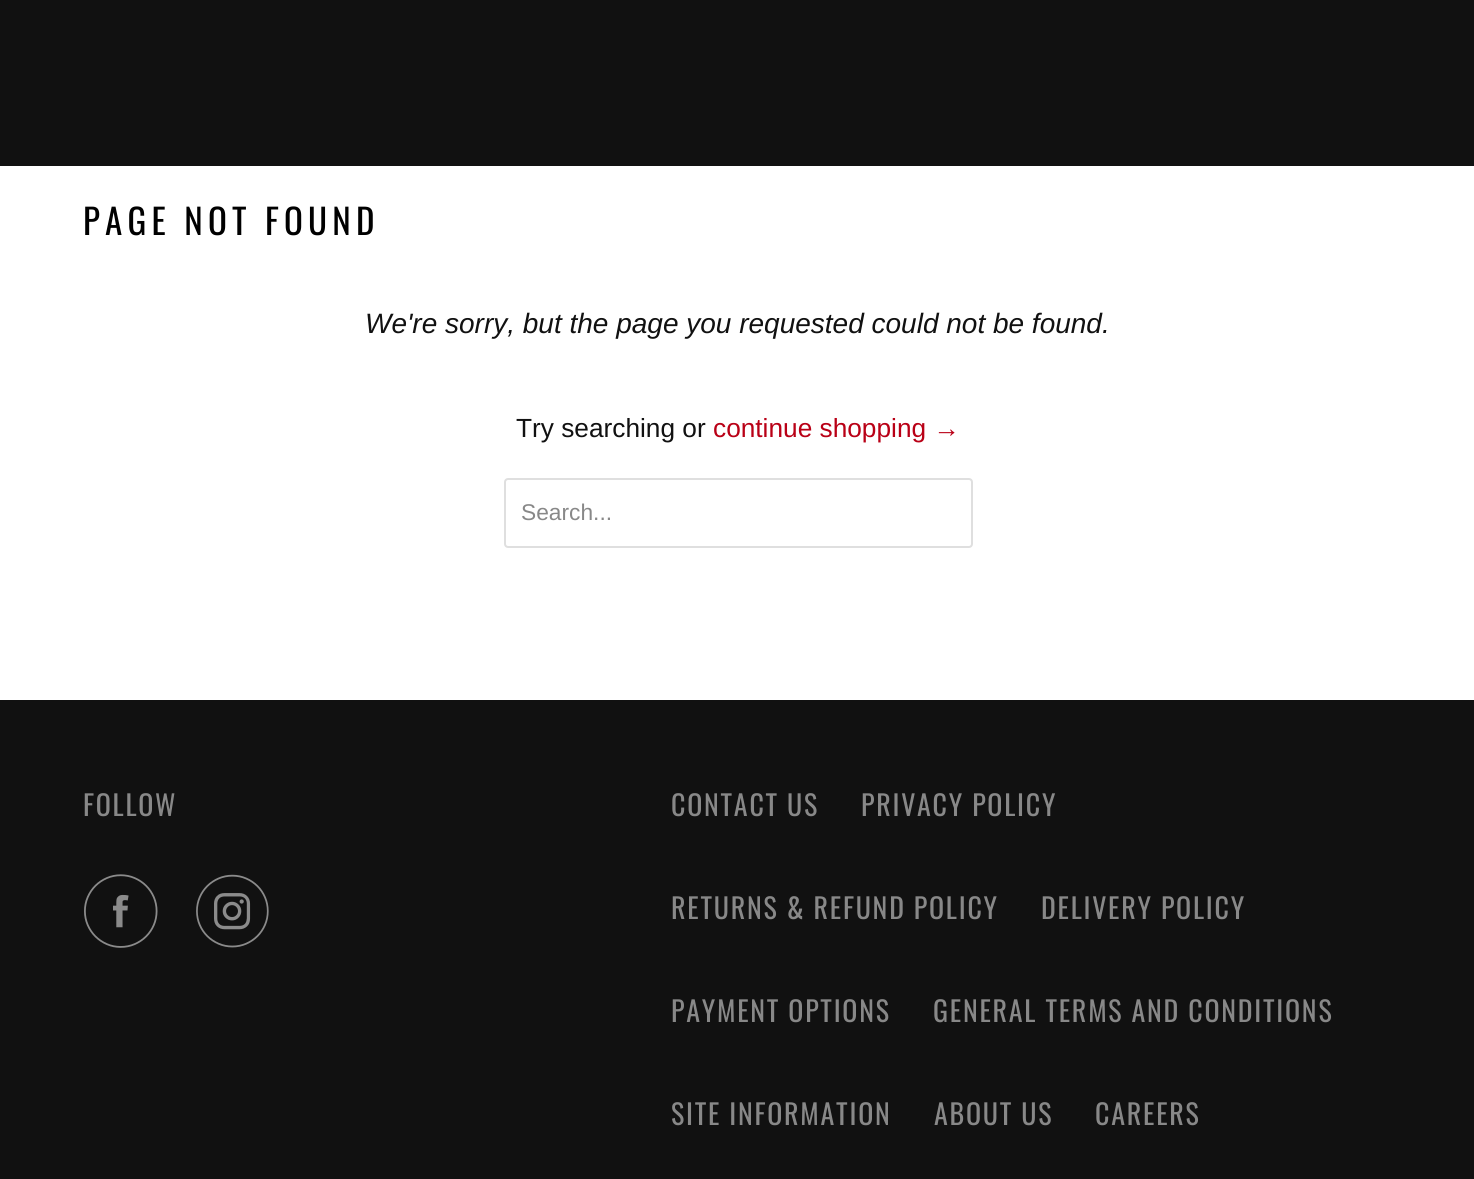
import math
import cairo

surface = cairo.ImageSurface(cairo.FORMAT_RGB24, 1474, 1179)
ctx = cairo.Context(surface)
options = cairo.FontOptions()
options.set_hint_metrics(cairo.HINT_METRICS_OFF)
options.set_hint_style(cairo.HINT_STYLE_NONE)
ctx.set_font_options(options)
ctx.set_miter_limit(4)


def spaced_text(x, y, s, letter, word):
    ctx.move_to(x, y)
    for ch in s:
        ctx.show_text(ch)
        ctx.rel_move_to(letter + word * (ch == ' '), 0)


def round_rect(x, y, w, h, r):
    ctx.new_sub_path()
    for i, (u, v) in enumerate([(x + w - r, y + h - r), (x + r, y + h - r), (x + r, y + r), (x + w - r, y + r)]):
        ctx.arc(u, v, r, i * math.pi / 2, (i + 1) * math.pi / 2)
    ctx.close_path()


def picture(path, x, y, w, h):
    ctx.save()
    ctx.set_source_surface(cairo.ImageSurface.create_from_png(path), x, y)
    ctx.rectangle(x, y, w, h)
    ctx.fill()
    ctx.restore()


ctx.set_source_rgb(0.067, 0.067, 0.067)
ctx.paint()
ctx.set_source_rgb(1, 1, 1)
ctx.rectangle(0, 166, 1474, 534)
ctx.fill()
ctx.select_font_face("Oswald")
ctx.set_font_size(35)
ctx.set_source_rgb(0, 0, 0)
spaced_text(83, 235, "PAGE NOT FOUND", 5.25, 0)
ctx.select_font_face("Liberation Sans", cairo.FONT_SLANT_ITALIC)
ctx.set_font_size(28)
ctx.set_source_rgb(0.067, 0.067, 0.067)
ctx.move_to(365, 333)
ctx.show_text("We're sorry, but the page you requested could not be found.")
ctx.select_font_face("Liberation Sans")
ctx.set_font_size(26.25)
ctx.move_to(516, 437)
ctx.show_text("Try searching or")
ctx.set_source_rgb(0.725, 0, 0.086)
ctx.move_to(713, 437)
ctx.show_text("continue shopping →")
round_rect(505, 479, 467, 68, 3)
ctx.set_source_rgb(0.875, 0.875, 0.875)
ctx.stroke()
ctx.set_font_size(22.75)
ctx.set_source_rgb(0.533, 0.533, 0.533)
ctx.move_to(521, 520)
ctx.show_text("Search...")
ctx.select_font_face("Oswald")
ctx.set_font_size(28)
spaced_text(83, 816, "FOLLOW", 1.75, 0)
picture("img1.png", 84, 874, 74, 74)
picture("img2.png", 196, 874, 73, 74)
spaced_text(671, 816, "CONTACT US", 1.75, 0)
spaced_text(861, 816, "PRIVACY POLICY", 1.75, 0)
spaced_text(671, 919, "RETURNS & REFUND POLICY", 1.75, 0)
spaced_text(1041, 919, "DELIVERY POLICY", 1.75, 0)
spaced_text(671, 1022, "PAYMENT OPTIONS", 1.75, 0)
spaced_text(933, 1022, "GENERAL TERMS AND CONDITIONS", 1.75, 0)
spaced_text(671, 1125, "SITE INFORMATION", 1.75, 0)
spaced_text(934, 1125, "ABOUT US", 1.75, 0)
spaced_text(1095, 1125, "CAREERS", 1.75, 0)
surface.write_to_png("page.png")
